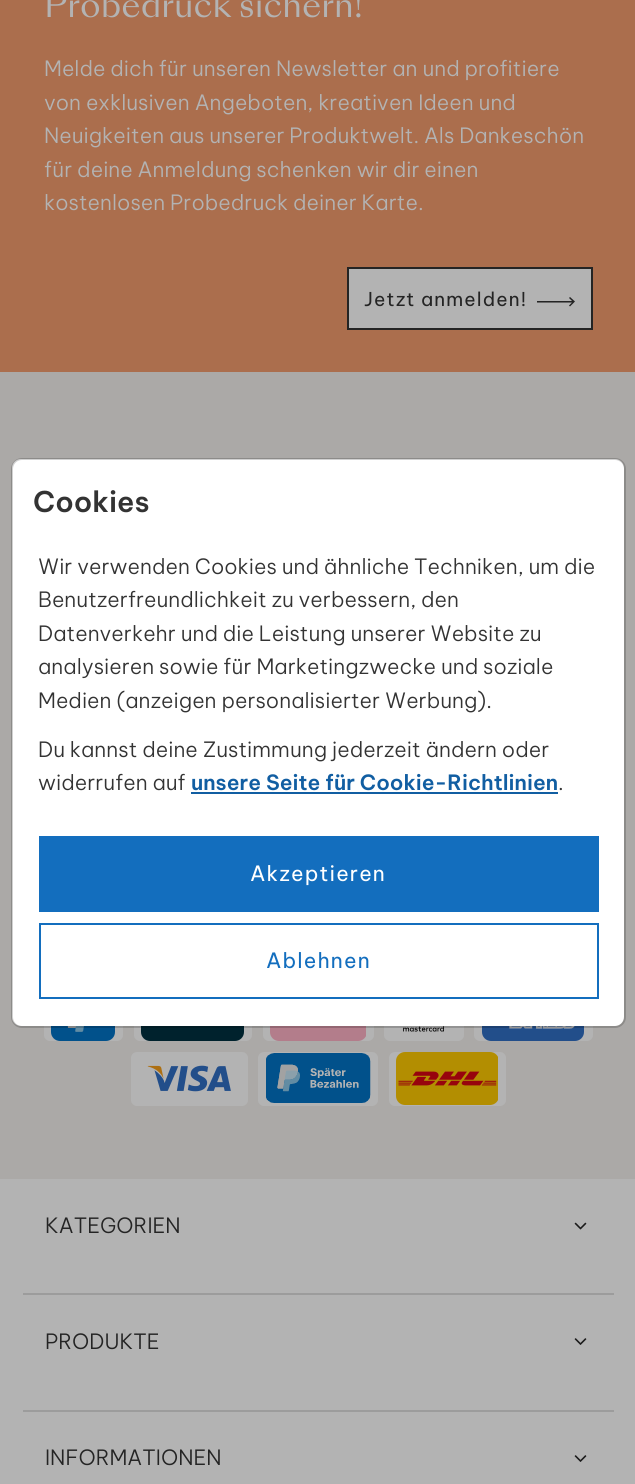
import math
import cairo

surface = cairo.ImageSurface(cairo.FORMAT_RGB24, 635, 1484)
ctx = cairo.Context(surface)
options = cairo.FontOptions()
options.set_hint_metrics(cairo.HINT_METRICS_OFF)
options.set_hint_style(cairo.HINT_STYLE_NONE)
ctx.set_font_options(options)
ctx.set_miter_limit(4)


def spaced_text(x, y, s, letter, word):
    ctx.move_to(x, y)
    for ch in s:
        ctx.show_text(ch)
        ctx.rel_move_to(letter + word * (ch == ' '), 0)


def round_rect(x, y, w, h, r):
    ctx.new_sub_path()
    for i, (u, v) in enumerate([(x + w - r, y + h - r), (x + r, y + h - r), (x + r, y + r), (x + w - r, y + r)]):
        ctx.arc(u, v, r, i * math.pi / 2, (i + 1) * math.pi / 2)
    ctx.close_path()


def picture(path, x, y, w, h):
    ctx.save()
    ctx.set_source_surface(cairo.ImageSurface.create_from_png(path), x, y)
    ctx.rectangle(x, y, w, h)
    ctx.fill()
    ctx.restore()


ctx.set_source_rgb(0.702, 0.702, 0.702)
ctx.paint()
ctx.set_source_rgb(0.671, 0.431, 0.302)
ctx.rectangle(0, 0, 635, 372)
ctx.fill()
ctx.select_font_face("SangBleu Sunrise")
ctx.set_font_size(32.6)
ctx.set_source_rgb(0.702, 0.702, 0.702)
ctx.move_to(44, 17)
ctx.show_text("Probedruck sichern!")
ctx.select_font_face("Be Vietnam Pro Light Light")
ctx.set_font_size(21)
ctx.move_to(44, 76)
ctx.show_text("Melde dich für unseren Newsletter an und profitiere")
ctx.move_to(44, 110)
ctx.show_text("von exklusiven Angeboten, kreativen Ideen und")
ctx.move_to(44, 143)
ctx.show_text("Neuigkeiten aus unserer Produktwelt. Als Dankeschön")
ctx.move_to(44, 177)
ctx.show_text("für deine Anmeldung schenken wir dir einen")
ctx.move_to(44, 210)
ctx.show_text("kostenlosen Probedruck deiner Karte.")
ctx.rectangle(348, 268, 244, 61)
ctx.fill_preserve()
ctx.set_source_rgb(0.141, 0.141, 0.141)
ctx.stroke()
ctx.select_font_face("Be Vietnam Pro")
ctx.set_font_size(19)
spaced_text(364, 306, "Jetzt anmelden!", 1.1, 0)
ctx.new_path()
ctx.move_to(570, 297)
ctx.line_to(569, 298)
ctx.line_to(572, 301)
ctx.line_to(537, 301)
ctx.line_to(537, 302.5)
ctx.line_to(572, 302.5)
ctx.line_to(569, 305.5)
ctx.line_to(570, 306.5)
ctx.line_to(575, 301.5)
ctx.close_path()
ctx.fill()
ctx.set_source_rgb(0.671, 0.663, 0.655)
ctx.rectangle(0, 372, 635, 807)
ctx.fill()
ctx.set_source_rgb(0.702, 0.702, 0.702)
round_rect(44, 987, 79, 54, 6)
ctx.fill()
picture("img1.png", 51, 1026, 64, 15)
round_rect(134, 987, 118, 54, 6)
ctx.fill()
picture("img2.png", 141, 1026, 103, 15)
round_rect(263, 987, 111, 54, 6)
ctx.fill()
picture("img3.png", 270, 1026, 96, 15)
round_rect(384, 987, 80, 54, 6)
ctx.fill()
picture("img4.png", 400, 1026, 47, 6)
round_rect(474, 987, 119, 54, 6)
ctx.fill()
picture("img5.png", 482, 1026, 102, 15)
round_rect(131, 1052, 117, 54, 6)
ctx.fill()
picture("img6.png", 147, 1065, 84, 27)
round_rect(258, 1052, 120, 54, 6)
ctx.fill()
picture("img7.png", 266, 1053, 105, 50)
round_rect(389, 1052, 117, 54, 6)
ctx.fill()
picture("img8.png", 396, 1052, 102, 53)
ctx.set_source_rgb(0.612, 0.612, 0.612)
ctx.rectangle(23, 1293, 591, 2)
ctx.fill()
ctx.select_font_face("Be Vietnam Pro Light Light")
ctx.set_font_size(21)
ctx.set_source_rgb(0.141, 0.141, 0.141)
ctx.move_to(45, 1233)
ctx.show_text("KATEGORIEN")
picture("img9.png", 574, 1222, 13, 8)
ctx.set_source_rgb(0.612, 0.612, 0.612)
ctx.rectangle(23, 1410, 591, 2)
ctx.fill()
ctx.set_source_rgb(0.141, 0.141, 0.141)
ctx.move_to(45, 1349)
ctx.show_text("PRODUKTE")
picture("img10.png", 574, 1338, 13, 7)
ctx.move_to(45, 1465)
ctx.show_text("INFORMATIONEN")
picture("img10.png", 574, 1455, 13, 7)
ctx.set_source_rgb(1, 1, 1)
round_rect(12, 459, 612, 567, 9)
ctx.fill()
round_rect(12, 459, 613, 568, 10)
ctx.set_source_rgba(0, 0, 0, 0.18)
ctx.stroke()
ctx.select_font_face("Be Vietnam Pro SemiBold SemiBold")
ctx.set_font_size(28.5)
ctx.set_source_rgb(0.2, 0.2, 0.2)
ctx.move_to(33, 512)
ctx.show_text("Cookies")
ctx.select_font_face("Be Vietnam Pro Light Light")
ctx.set_font_size(21)
ctx.move_to(38, 574)
ctx.show_text("Wir verwenden Cookies und ähnliche Techniken, um die")
ctx.move_to(38, 607)
ctx.show_text("Benutzerfreundlichkeit zu verbessern, den")
ctx.move_to(38, 641)
ctx.show_text("Datenverkehr und die Leistung unserer Website zu")
ctx.move_to(38, 674)
ctx.show_text("analysieren sowie für Marketingzwecke und soziale")
ctx.move_to(38, 708)
ctx.show_text("Medien (anzeigen personalisierter Werbung).")
ctx.move_to(38, 757)
ctx.show_text("Du kannst deine Zustimmung jederzeit ändern oder")
ctx.move_to(38, 790)
ctx.show_text("widerrufen auf")
ctx.select_font_face("Be Vietnam Pro SemiBold SemiBold")
ctx.set_source_rgb(0.067, 0.369, 0.635)
ctx.move_to(191, 790)
ctx.show_text("unsere Seite für Cookie-Richtlinien")
ctx.rectangle(191, 792, 367, 2)
ctx.fill()
ctx.select_font_face("Be Vietnam Pro Light Light")
ctx.set_source_rgb(0.2, 0.2, 0.2)
ctx.move_to(558, 790)
ctx.show_text(".")
ctx.set_source_rgb(0.078, 0.431, 0.745)
ctx.rectangle(39, 836, 560, 76)
ctx.fill()
ctx.select_font_face("Be Vietnam Pro")
ctx.set_source_rgb(1, 1, 1)
spaced_text(250, 881, "Akzeptieren", 1.1, 0)
ctx.rectangle(40, 924, 558, 74)
ctx.set_source_rgb(0.078, 0.431, 0.745)
ctx.stroke()
spaced_text(266, 968, "Ablehnen", 1.1, 0)
surface.write_to_png("page.png")
